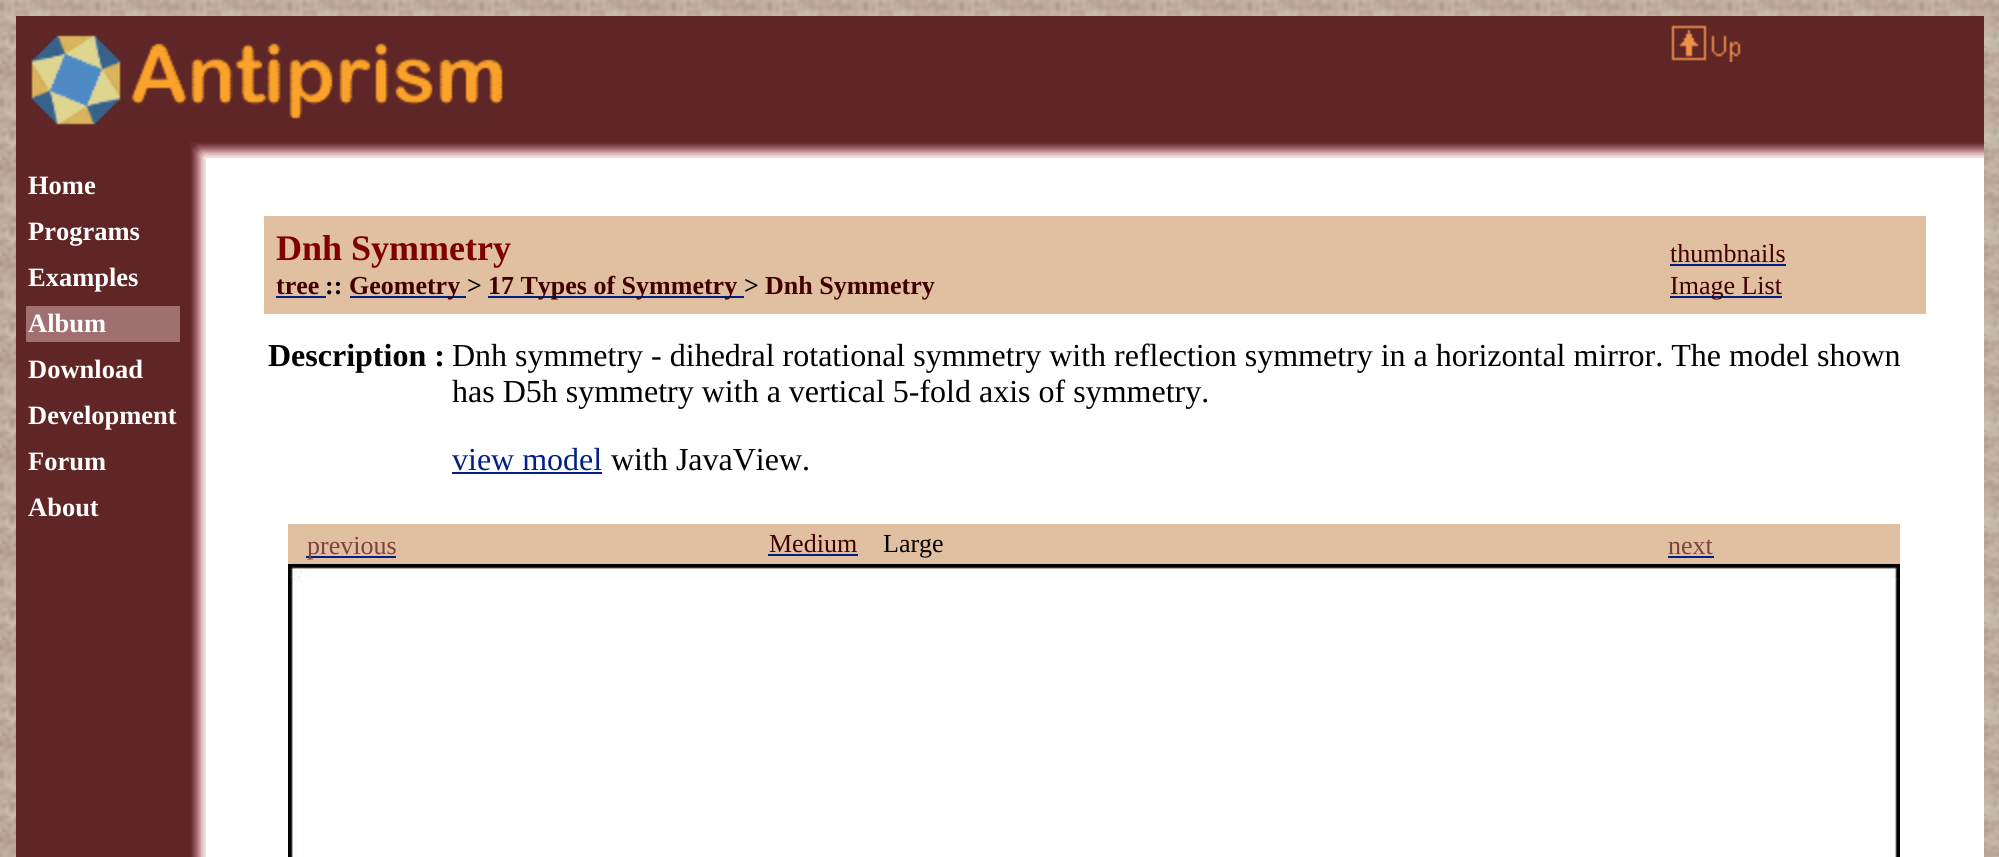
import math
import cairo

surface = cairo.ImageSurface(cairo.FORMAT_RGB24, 1999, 857)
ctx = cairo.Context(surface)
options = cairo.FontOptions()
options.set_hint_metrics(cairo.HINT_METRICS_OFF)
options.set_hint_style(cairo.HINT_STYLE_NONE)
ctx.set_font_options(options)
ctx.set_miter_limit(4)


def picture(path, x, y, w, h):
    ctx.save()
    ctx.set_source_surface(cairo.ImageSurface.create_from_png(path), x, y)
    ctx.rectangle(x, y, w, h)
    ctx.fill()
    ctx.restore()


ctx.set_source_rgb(1, 1, 1)
ctx.paint()
picture("img1.png", 0, 0, 1999, 857)
ctx.set_source_rgb(0.376, 0.145, 0.145)
ctx.rectangle(16, 16, 1968, 126)
ctx.fill()
picture("img2.png", 31, 35, 472, 90)
picture("img3.png", 1671, 25, 70, 37)
ctx.rectangle(16, 142, 174, 715)
ctx.fill()
picture("img4.png", 190, 142, 16, 16)
picture("img5.png", 206, 142, 1778, 16)
ctx.select_font_face("Liberation Serif", cairo.FONT_SLANT_NORMAL, cairo.FONT_WEIGHT_BOLD)
ctx.set_font_size(26.5)
ctx.set_source_rgb(1, 1, 1)
ctx.move_to(28, 194)
ctx.show_text("Home")
ctx.move_to(28, 240)
ctx.show_text("Programs")
ctx.move_to(28, 286)
ctx.show_text("Examples")
ctx.set_source_rgb(0.627, 0.439, 0.439)
ctx.rectangle(26, 306, 154, 36)
ctx.fill()
ctx.set_source_rgb(1, 1, 1)
ctx.move_to(28, 332)
ctx.show_text("Album")
ctx.move_to(28, 378)
ctx.show_text("Download")
ctx.move_to(28, 424)
ctx.show_text("Development")
ctx.move_to(28, 470)
ctx.show_text("Forum")
ctx.move_to(28, 516)
ctx.show_text("About")
picture("img6.png", 190, 158, 16, 699)
ctx.rectangle(206, 158, 1778, 699)
ctx.fill()
ctx.set_source_rgb(0.878, 0.753, 0.627)
ctx.rectangle(264, 216, 1662, 98)
ctx.fill()
ctx.set_font_size(36)
ctx.set_source_rgb(0.502, 0, 0)
ctx.move_to(276, 260)
ctx.show_text("Dnh Symmetry")
ctx.select_font_face("Liberation Serif")
ctx.set_font_size(26)
ctx.set_source_rgb(0.251, 0, 0)
ctx.move_to(1670, 262)
ctx.show_text("thumbnails")
ctx.set_source_rgb(0, 0.125, 0.522)
ctx.rectangle(1670, 264, 116, 2)
ctx.fill()
ctx.select_font_face("Liberation Serif", cairo.FONT_SLANT_NORMAL, cairo.FONT_WEIGHT_BOLD)
ctx.set_source_rgb(0.251, 0, 0)
ctx.move_to(276, 294)
ctx.show_text("tree")
ctx.set_source_rgb(0, 0.125, 0.522)
ctx.rectangle(276, 296, 50, 2)
ctx.fill()
ctx.set_source_rgb(0, 0, 0)
ctx.move_to(325, 294)
ctx.show_text("::")
ctx.set_source_rgb(0, 0.125, 0.522)
ctx.rectangle(350, 296, 110, 2)
ctx.fill()
ctx.set_source_rgb(0.251, 0, 0)
ctx.move_to(349, 294)
ctx.show_text("Geometry")
ctx.set_source_rgb(0, 0.125, 0.522)
ctx.rectangle(460, 296, 6, 2)
ctx.fill()
ctx.set_source_rgb(0, 0, 0)
ctx.move_to(467, 294)
ctx.show_text(">")
ctx.set_source_rgb(0, 0.125, 0.522)
ctx.rectangle(488, 296, 256, 2)
ctx.fill()
ctx.set_source_rgb(0.251, 0, 0)
ctx.move_to(488, 294)
ctx.show_text("17 Types of Symmetry")
ctx.set_source_rgb(0, 0, 0)
ctx.move_to(744, 294)
ctx.show_text(">")
ctx.set_source_rgb(0.251, 0, 0)
ctx.move_to(765, 294)
ctx.show_text("Dnh Symmetry")
ctx.set_source_rgb(0, 0.125, 0.522)
ctx.rectangle(1670, 296, 112, 2)
ctx.fill()
ctx.select_font_face("Liberation Serif")
ctx.set_source_rgb(0.251, 0, 0)
ctx.move_to(1670, 294)
ctx.show_text("Image List")
ctx.select_font_face("Liberation Serif", cairo.FONT_SLANT_NORMAL, cairo.FONT_WEIGHT_BOLD)
ctx.set_font_size(32)
ctx.set_source_rgb(0, 0, 0)
ctx.move_to(268, 366)
ctx.show_text("Description :")
ctx.select_font_face("Liberation Serif")
ctx.move_to(452, 366)
ctx.show_text("Dnh symmetry - dihedral rotational symmetry with reflection symmetry in a horizontal mirror. The model shown")
ctx.move_to(452, 402)
ctx.show_text("has D5h symmetry with a vertical 5-fold axis of symmetry.")
ctx.set_source_rgb(0, 0.125, 0.522)
ctx.move_to(452, 470)
ctx.show_text("view model")
ctx.rectangle(452, 472, 150, 2)
ctx.fill()
ctx.set_source_rgb(0, 0, 0)
ctx.move_to(611, 470)
ctx.show_text("with JavaView.")
ctx.set_source_rgb(0.878, 0.753, 0.627)
ctx.rectangle(288, 524, 1612, 40)
ctx.fill()
ctx.set_source_rgb(0, 0.125, 0.522)
ctx.rectangle(306, 556, 90, 2)
ctx.fill()
ctx.set_font_size(26)
ctx.set_source_rgb(0.502, 0.251, 0.251)
ctx.move_to(307, 554)
ctx.show_text("previous")
ctx.set_source_rgb(0.251, 0, 0)
ctx.move_to(769, 552)
ctx.show_text("Medium")
ctx.set_source_rgb(0, 0.125, 0.522)
ctx.rectangle(768, 554, 90, 2)
ctx.fill()
ctx.set_source_rgb(0, 0, 0)
ctx.move_to(883, 552)
ctx.show_text("Large")
ctx.set_source_rgb(0.502, 0.251, 0.251)
ctx.move_to(1668, 554)
ctx.show_text("next")
ctx.set_source_rgb(0, 0.125, 0.522)
ctx.rectangle(1668, 556, 46, 2)
ctx.fill()
ctx.set_source_rgb(0, 0, 0)
ctx.rectangle(288, 564, 1612, 293)
ctx.fill()
picture("img7.png", 290, 566, 1608, 291)
surface.write_to_png("page.png")
